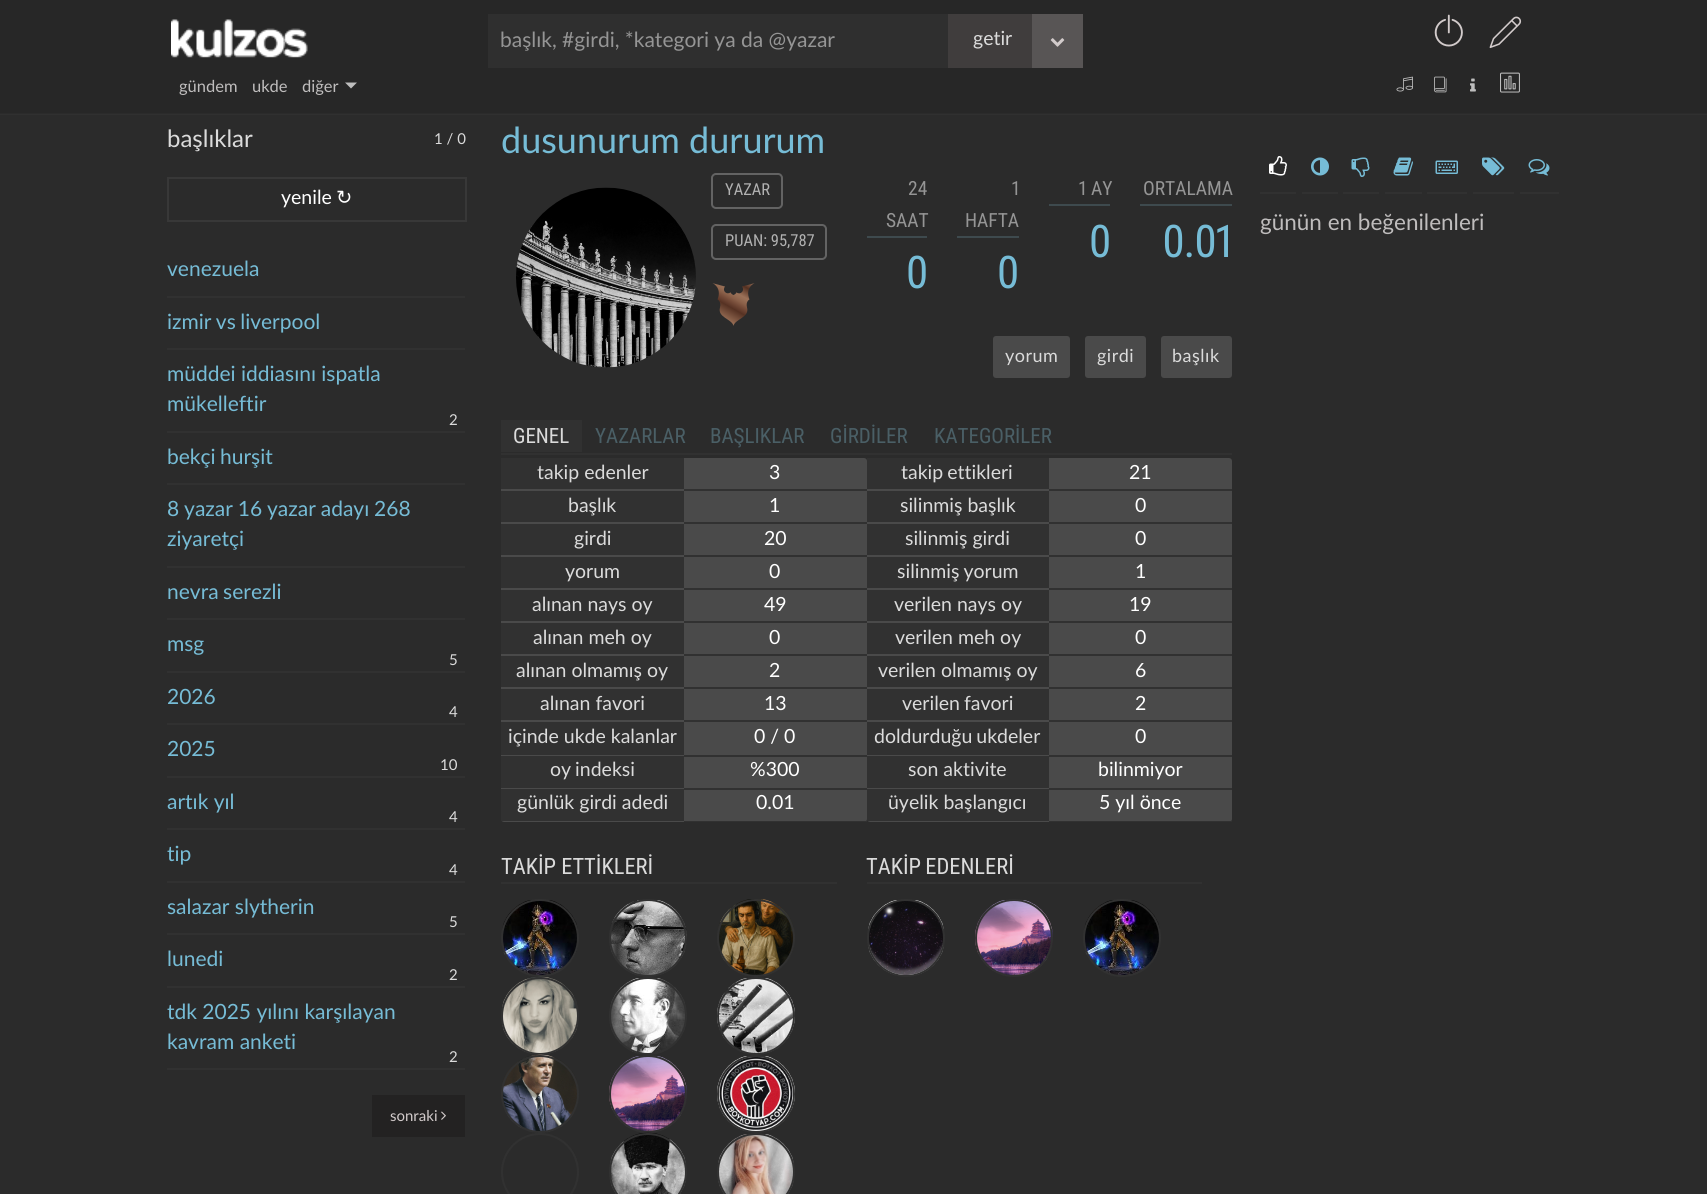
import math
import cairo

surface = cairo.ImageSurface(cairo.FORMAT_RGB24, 1707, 1194)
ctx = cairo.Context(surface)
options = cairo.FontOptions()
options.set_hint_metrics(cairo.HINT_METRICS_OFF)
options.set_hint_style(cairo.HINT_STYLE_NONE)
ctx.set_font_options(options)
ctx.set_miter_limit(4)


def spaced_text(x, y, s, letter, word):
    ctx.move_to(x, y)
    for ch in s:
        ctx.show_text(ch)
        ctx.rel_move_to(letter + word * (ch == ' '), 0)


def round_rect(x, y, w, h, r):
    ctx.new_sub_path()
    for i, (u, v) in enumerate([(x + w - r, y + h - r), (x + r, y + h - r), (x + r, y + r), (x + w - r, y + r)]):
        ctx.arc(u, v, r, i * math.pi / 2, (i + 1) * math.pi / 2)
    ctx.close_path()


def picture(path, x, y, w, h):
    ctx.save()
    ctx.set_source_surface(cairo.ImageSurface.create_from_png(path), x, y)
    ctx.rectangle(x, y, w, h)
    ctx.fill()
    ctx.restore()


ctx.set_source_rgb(0.169, 0.169, 0.169)
ctx.paint()
ctx.set_source_rgb(0.188, 0.188, 0.188)
ctx.rectangle(0, 114, 1707, 1)
ctx.fill()
ctx.set_source_rgb(0.153, 0.153, 0.153)
ctx.rectangle(0, 0, 1707, 113)
ctx.fill()
picture("img1.png", 171, 19, 137, 39)
ctx.set_source_rgb(0.184, 0.184, 0.184)
ctx.rectangle(488, 14, 460, 54)
ctx.fill()
ctx.select_font_face("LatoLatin")
ctx.set_font_size(21)
ctx.set_source_rgb(0.584, 0.584, 0.584)
ctx.move_to(500, 47)
ctx.show_text("başlık, #girdi, *kategori ya da @yazar")
ctx.set_source_rgb(0.251, 0.239, 0.239)
ctx.rectangle(948, 14, 84, 54)
ctx.fill()
ctx.set_font_size(19.5)
ctx.set_source_rgb(0.859, 0.859, 0.859)
ctx.move_to(973, 45)
ctx.show_text("getir")
ctx.set_source_rgb(0.345, 0.333, 0.333)
ctx.rectangle(1032, 14, 51, 54)
ctx.fill()
picture("img2.png", 1050, 38, 15, 9)
picture("img3.png", 1434, 14, 29, 33)
picture("img4.png", 1489, 16, 33, 33)
ctx.set_font_size(16.5)
ctx.set_source_rgb(0.749, 0.741, 0.741)
ctx.move_to(179, 92)
ctx.show_text("gündem")
ctx.move_to(252, 92)
ctx.show_text("ukde")
ctx.move_to(302, 92)
ctx.show_text("diğer")
ctx.set_source_rgb(0.745, 0.745, 0.745)
ctx.new_path()
ctx.move_to(345, 82.5)
ctx.line_to(357, 82.5)
ctx.line_to(351, 88.5)
ctx.close_path()
ctx.fill()
picture("img5.png", 1396, 76, 17, 16)
picture("img6.png", 1434, 76, 13, 17)
picture("img7.png", 1470, 78, 6, 14)
picture("img8.png", 1500, 72, 20, 21)
ctx.set_font_size(24)
ctx.set_source_rgb(0.859, 0.859, 0.859)
ctx.move_to(167, 147)
ctx.show_text("başlıklar")
ctx.set_font_size(15)
ctx.move_to(434, 144)
ctx.show_text("1 / 0")
ctx.rectangle(168, 178, 298, 43)
ctx.set_source_rgb(0.22, 0.22, 0.22)
ctx.stroke()
ctx.set_font_size(19.5)
ctx.set_source_rgb(1, 1, 1)
ctx.move_to(281, 204)
ctx.show_text("yenile")
ctx.select_font_face("DejaVu Sans")
ctx.move_to(336, 204)
ctx.show_text("↻")
ctx.set_source_rgb(0.192, 0.192, 0.192)
ctx.rectangle(167, 296, 298, 2)
ctx.fill()
ctx.select_font_face("LatoLatin")
ctx.set_font_size(21)
ctx.set_source_rgb(0.463, 0.737, 0.839)
ctx.move_to(167, 276)
ctx.show_text("venezuela")
ctx.set_source_rgb(0.192, 0.192, 0.192)
ctx.rectangle(167, 348, 298, 2)
ctx.fill()
ctx.set_source_rgb(0.463, 0.737, 0.839)
spaced_text(167, 329, "izmir vs liverpool", 0, -1)
ctx.set_source_rgb(0.192, 0.192, 0.192)
ctx.rectangle(167, 431, 298, 2)
ctx.fill()
ctx.set_source_rgb(0.463, 0.737, 0.839)
ctx.move_to(167, 381)
ctx.show_text("müddei iddiasını ispatla")
ctx.move_to(167, 411)
ctx.show_text("mükelleftir")
ctx.set_font_size(15)
ctx.set_source_rgb(0.859, 0.859, 0.859)
ctx.move_to(449, 425)
ctx.show_text("2")
ctx.set_source_rgb(0.192, 0.192, 0.192)
ctx.rectangle(167, 483, 298, 2)
ctx.fill()
ctx.set_font_size(21)
ctx.set_source_rgb(0.463, 0.737, 0.839)
spaced_text(167, 464, "bekçi hurşit", 0, -1)
ctx.set_source_rgb(0.192, 0.192, 0.192)
ctx.rectangle(167, 566, 298, 2)
ctx.fill()
ctx.set_source_rgb(0.463, 0.737, 0.839)
spaced_text(167, 516, "8 yazar 16 yazar adayı 268", 0, -0.5)
ctx.move_to(167, 546)
ctx.show_text("ziyaretçi")
ctx.set_source_rgb(0.192, 0.192, 0.192)
ctx.rectangle(167, 618, 298, 2)
ctx.fill()
ctx.set_source_rgb(0.463, 0.737, 0.839)
spaced_text(167, 599, "nevra serezli", 0, -1)
ctx.set_source_rgb(0.192, 0.192, 0.192)
ctx.rectangle(167, 671, 298, 2)
ctx.fill()
ctx.set_source_rgb(0.463, 0.737, 0.839)
ctx.move_to(167, 651)
ctx.show_text("msg")
ctx.set_font_size(15)
ctx.set_source_rgb(0.859, 0.859, 0.859)
ctx.move_to(449, 665)
ctx.show_text("5")
ctx.set_source_rgb(0.192, 0.192, 0.192)
ctx.rectangle(167, 723, 298, 2)
ctx.fill()
ctx.set_font_size(21)
ctx.set_source_rgb(0.463, 0.737, 0.839)
ctx.move_to(167, 704)
ctx.show_text("2026")
ctx.set_font_size(15)
ctx.set_source_rgb(0.859, 0.859, 0.859)
ctx.move_to(449, 717)
ctx.show_text("4")
ctx.set_source_rgb(0.192, 0.192, 0.192)
ctx.rectangle(167, 776, 298, 2)
ctx.fill()
ctx.set_font_size(21)
ctx.set_source_rgb(0.463, 0.737, 0.839)
ctx.move_to(167, 756)
ctx.show_text("2025")
ctx.set_font_size(15)
ctx.set_source_rgb(0.859, 0.859, 0.859)
ctx.move_to(440, 770)
ctx.show_text("10")
ctx.set_source_rgb(0.192, 0.192, 0.192)
ctx.rectangle(167, 828, 298, 2)
ctx.fill()
ctx.set_font_size(21)
ctx.set_source_rgb(0.463, 0.737, 0.839)
ctx.move_to(167, 809)
ctx.show_text("artık yıl")
ctx.set_font_size(15)
ctx.set_source_rgb(0.859, 0.859, 0.859)
ctx.move_to(449, 822)
ctx.show_text("4")
ctx.set_source_rgb(0.192, 0.192, 0.192)
ctx.rectangle(167, 881, 298, 2)
ctx.fill()
ctx.set_font_size(21)
ctx.set_source_rgb(0.463, 0.737, 0.839)
ctx.move_to(167, 861)
ctx.show_text("tip")
ctx.set_font_size(15)
ctx.set_source_rgb(0.859, 0.859, 0.859)
ctx.move_to(449, 875)
ctx.show_text("4")
ctx.set_source_rgb(0.192, 0.192, 0.192)
ctx.rectangle(167, 933, 298, 2)
ctx.fill()
ctx.set_font_size(21)
ctx.set_source_rgb(0.463, 0.737, 0.839)
ctx.move_to(167, 914)
ctx.show_text("salazar slytherin")
ctx.set_font_size(15)
ctx.set_source_rgb(0.859, 0.859, 0.859)
ctx.move_to(449, 927)
ctx.show_text("5")
ctx.set_source_rgb(0.192, 0.192, 0.192)
ctx.rectangle(167, 986, 298, 2)
ctx.fill()
ctx.set_font_size(21)
ctx.set_source_rgb(0.463, 0.737, 0.839)
ctx.move_to(167, 966)
ctx.show_text("lunedi")
ctx.set_font_size(15)
ctx.set_source_rgb(0.859, 0.859, 0.859)
ctx.move_to(449, 980)
ctx.show_text("2")
ctx.set_source_rgb(0.192, 0.192, 0.192)
ctx.rectangle(167, 1068, 298, 2)
ctx.fill()
ctx.set_font_size(21)
ctx.set_source_rgb(0.463, 0.737, 0.839)
ctx.move_to(167, 1019)
ctx.show_text("tdk 2025 yılını karşılayan")
ctx.move_to(167, 1049)
ctx.show_text("kavram anketi")
ctx.set_font_size(15)
ctx.set_source_rgb(0.859, 0.859, 0.859)
ctx.move_to(449, 1062)
ctx.show_text("2")
ctx.set_source_rgb(0.137, 0.133, 0.133)
ctx.rectangle(372, 1095, 93, 42)
ctx.fill()
ctx.set_source_rgb(0.824, 0.796, 0.796)
ctx.move_to(390, 1121)
ctx.show_text("sonraki")
picture("img9.png", 441, 1111, 5, 9)
ctx.set_font_size(36)
ctx.set_source_rgb(0.463, 0.737, 0.839)
ctx.move_to(501, 153)
ctx.show_text("dusunurum dururum")
picture("img10.png", 516, 187, 180, 181)
round_rect(712, 174, 70, 34, 4)
ctx.set_source_rgb(0.388, 0.388, 0.388)
ctx.stroke()
ctx.select_font_face("Roboto Condensed")
ctx.set_font_size(16.5)
ctx.set_source_rgb(0.694, 0.694, 0.694)
ctx.move_to(725, 195)
ctx.show_text("YAZAR")
round_rect(712, 225, 114, 34, 4)
ctx.set_source_rgb(0.388, 0.388, 0.388)
ctx.stroke()
ctx.set_source_rgb(0.694, 0.694, 0.694)
ctx.move_to(725, 246)
ctx.show_text("PUAN: 95,787")
picture("img11.png", 712, 283, 43, 43)
ctx.set_source_rgb(0.243, 0.29, 0.306)
ctx.rectangle(867, 236, 60, 2)
ctx.fill()
ctx.set_font_size(19.5)
ctx.set_source_rgb(0.584, 0.584, 0.584)
ctx.move_to(908, 195)
ctx.show_text("24")
ctx.move_to(886, 227)
ctx.show_text("SAAT")
ctx.set_font_size(45)
ctx.set_source_rgb(0.463, 0.737, 0.839)
spaced_text(906, 288, "0", -1.5, 0)
ctx.set_source_rgb(0.243, 0.29, 0.306)
ctx.rectangle(957, 236, 62, 2)
ctx.fill()
ctx.set_font_size(19.5)
ctx.set_source_rgb(0.584, 0.584, 0.584)
ctx.move_to(1011, 195)
ctx.show_text("1")
ctx.move_to(965, 227)
ctx.show_text("HAFTA")
ctx.set_font_size(45)
ctx.set_source_rgb(0.463, 0.737, 0.839)
spaced_text(997, 288, "0", -1.5, 0)
ctx.set_source_rgb(0.243, 0.29, 0.306)
ctx.rectangle(1049, 204, 61, 2)
ctx.fill()
ctx.set_font_size(19.5)
ctx.set_source_rgb(0.584, 0.584, 0.584)
spaced_text(1078, 195, "1 AY", 0, -1)
ctx.set_font_size(45)
ctx.set_source_rgb(0.463, 0.737, 0.839)
spaced_text(1089, 257, "0", -1.5, 0)
ctx.set_source_rgb(0.243, 0.29, 0.306)
ctx.rectangle(1140, 204, 92, 2)
ctx.fill()
ctx.set_font_size(19.5)
ctx.set_source_rgb(0.584, 0.584, 0.584)
ctx.move_to(1143, 195)
ctx.show_text("ORTALAMA")
ctx.select_font_face("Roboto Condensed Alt")
ctx.set_font_size(45)
ctx.set_source_rgb(0.463, 0.737, 0.839)
spaced_text(1162, 257, "0.01", -1.5, 0)
ctx.set_source_rgb(0.29, 0.29, 0.29)
round_rect(994, 337, 75, 40, 2)
ctx.fill_preserve()
ctx.stroke()
ctx.select_font_face("LatoLatin")
ctx.set_font_size(18)
ctx.set_source_rgb(0.859, 0.859, 0.859)
spaced_text(1005, 362, "yorum", 0.5, 0)
ctx.set_source_rgb(0.29, 0.29, 0.29)
round_rect(1086, 337, 59, 40, 2)
ctx.fill_preserve()
ctx.stroke()
ctx.set_source_rgb(0.859, 0.859, 0.859)
spaced_text(1097, 362, "girdi", 0.5, 0)
ctx.set_source_rgb(0.29, 0.29, 0.29)
round_rect(1162, 337, 69, 40, 2)
ctx.fill_preserve()
ctx.stroke()
ctx.set_source_rgb(0.859, 0.859, 0.859)
spaced_text(1172, 362, "başlık", 0.5, 0)
ctx.set_source_rgb(0.192, 0.192, 0.192)
ctx.rectangle(501, 453, 731, 2)
ctx.fill()
ctx.rectangle(501, 420, 81, 32)
ctx.fill()
ctx.select_font_face("Roboto Condensed")
ctx.set_font_size(21)
ctx.set_source_rgb(0.859, 0.859, 0.859)
ctx.move_to(513, 443)
ctx.show_text("GENEL")
ctx.set_source_rgb(0.29, 0.373, 0.4)
ctx.move_to(595, 443)
ctx.show_text("YAZARLAR")
ctx.move_to(710, 443)
ctx.show_text("BAŞLIKLAR")
ctx.move_to(830, 443)
ctx.show_text("GİRDİLER")
ctx.move_to(934, 443)
ctx.show_text("KATEGORİLER")
ctx.set_source_rgb(0.29, 0.29, 0.29)
round_rect(501, 458, 366, 364, 3)
ctx.fill()
ctx.set_source_rgb(0.192, 0.192, 0.192)
ctx.rectangle(501, 458, 183, 31)
ctx.fill()
ctx.select_font_face("LatoLatin")
ctx.set_font_size(19.5)
ctx.set_source_rgb(0.859, 0.859, 0.859)
ctx.move_to(537, 479)
ctx.show_text("takip edenler")
ctx.set_source_rgb(0.192, 0.192, 0.192)
ctx.rectangle(684, 489, 183, 2)
ctx.fill()
ctx.set_source_rgb(1, 1, 1)
ctx.move_to(769, 479)
ctx.show_text("3")
ctx.set_source_rgb(0.192, 0.192, 0.192)
ctx.rectangle(501, 491, 183, 31)
ctx.fill()
ctx.set_source_rgb(0.859, 0.859, 0.859)
ctx.move_to(568, 512)
ctx.show_text("başlık")
ctx.set_source_rgb(0.192, 0.192, 0.192)
ctx.rectangle(684, 522, 183, 2)
ctx.fill()
ctx.set_source_rgb(1, 1, 1)
ctx.move_to(769, 512)
ctx.show_text("1")
ctx.set_source_rgb(0.192, 0.192, 0.192)
ctx.rectangle(501, 524, 183, 31)
ctx.fill()
ctx.set_source_rgb(0.859, 0.859, 0.859)
ctx.move_to(574, 545)
ctx.show_text("girdi")
ctx.set_source_rgb(0.192, 0.192, 0.192)
ctx.rectangle(684, 555, 183, 2)
ctx.fill()
ctx.set_source_rgb(1, 1, 1)
ctx.move_to(764, 545)
ctx.show_text("20")
ctx.set_source_rgb(0.192, 0.192, 0.192)
ctx.rectangle(501, 557, 183, 31)
ctx.fill()
ctx.set_source_rgb(0.859, 0.859, 0.859)
ctx.move_to(565, 578)
ctx.show_text("yorum")
ctx.set_source_rgb(0.192, 0.192, 0.192)
ctx.rectangle(684, 588, 183, 2)
ctx.fill()
ctx.set_source_rgb(1, 1, 1)
ctx.move_to(769, 578)
ctx.show_text("0")
ctx.set_source_rgb(0.192, 0.192, 0.192)
ctx.rectangle(501, 590, 183, 31)
ctx.fill()
ctx.set_source_rgb(0.859, 0.859, 0.859)
ctx.move_to(532, 611)
ctx.show_text("alınan nays oy")
ctx.set_source_rgb(0.192, 0.192, 0.192)
ctx.rectangle(684, 621, 183, 2)
ctx.fill()
ctx.set_source_rgb(1, 1, 1)
ctx.move_to(764, 611)
ctx.show_text("49")
ctx.set_source_rgb(0.192, 0.192, 0.192)
ctx.rectangle(501, 623, 183, 31)
ctx.fill()
ctx.set_source_rgb(0.859, 0.859, 0.859)
ctx.move_to(533, 644)
ctx.show_text("alınan meh oy")
ctx.set_source_rgb(0.192, 0.192, 0.192)
ctx.rectangle(684, 654, 183, 2)
ctx.fill()
ctx.set_source_rgb(1, 1, 1)
ctx.move_to(769, 644)
ctx.show_text("0")
ctx.set_source_rgb(0.192, 0.192, 0.192)
ctx.rectangle(501, 656, 183, 31)
ctx.fill()
ctx.set_source_rgb(0.859, 0.859, 0.859)
ctx.move_to(516, 677)
ctx.show_text("alınan olmamış oy")
ctx.set_source_rgb(0.192, 0.192, 0.192)
ctx.rectangle(684, 687, 183, 2)
ctx.fill()
ctx.set_source_rgb(1, 1, 1)
ctx.move_to(769, 677)
ctx.show_text("2")
ctx.set_source_rgb(0.192, 0.192, 0.192)
ctx.rectangle(501, 689, 183, 31)
ctx.fill()
ctx.set_source_rgb(0.859, 0.859, 0.859)
ctx.move_to(540, 710)
ctx.show_text("alınan favori")
ctx.set_source_rgb(0.192, 0.192, 0.192)
ctx.rectangle(684, 720, 183, 2)
ctx.fill()
ctx.set_source_rgb(1, 1, 1)
ctx.move_to(764, 710)
ctx.show_text("13")
ctx.set_source_rgb(0.192, 0.192, 0.192)
ctx.rectangle(501, 722, 183, 33)
ctx.fill()
ctx.set_source_rgb(0.859, 0.859, 0.859)
ctx.move_to(508, 743)
ctx.show_text("içinde ukde kalanlar")
ctx.set_source_rgb(0.192, 0.192, 0.192)
ctx.rectangle(684, 755, 183, 2)
ctx.fill()
ctx.set_source_rgb(1, 1, 1)
ctx.move_to(754, 743)
ctx.show_text("0 / 0")
ctx.set_source_rgb(0.192, 0.192, 0.192)
ctx.rectangle(501, 756, 183, 32)
ctx.fill()
ctx.set_source_rgb(0.859, 0.859, 0.859)
spaced_text(550, 776, "oy indeksi", 0, -1)
ctx.set_source_rgb(0.192, 0.192, 0.192)
ctx.rectangle(684, 788, 183, 2)
ctx.fill()
ctx.set_source_rgb(1, 1, 1)
ctx.move_to(750, 776)
ctx.show_text("%300")
ctx.set_source_rgb(0.192, 0.192, 0.192)
ctx.rectangle(501, 789, 183, 32)
ctx.fill()
ctx.set_source_rgb(0.859, 0.859, 0.859)
ctx.move_to(517, 809)
ctx.show_text("günlük girdi adedi")
ctx.set_source_rgb(0.192, 0.192, 0.192)
ctx.rectangle(684, 821, 183, 1)
ctx.fill()
ctx.set_source_rgb(1, 1, 1)
ctx.move_to(756, 809)
ctx.show_text("0.01")
ctx.set_source_rgb(0.29, 0.29, 0.29)
round_rect(867, 458, 365, 364, 3)
ctx.fill()
ctx.set_source_rgb(0.192, 0.192, 0.192)
ctx.rectangle(867, 458, 182, 31)
ctx.fill()
ctx.set_source_rgb(0.859, 0.859, 0.859)
spaced_text(901, 479, "takip ettikleri", 0, -1)
ctx.set_source_rgb(0.192, 0.192, 0.192)
ctx.rectangle(1049, 489, 183, 2)
ctx.fill()
ctx.set_source_rgb(1, 1, 1)
ctx.move_to(1129, 479)
ctx.show_text("21")
ctx.set_source_rgb(0.192, 0.192, 0.192)
ctx.rectangle(867, 491, 182, 31)
ctx.fill()
ctx.set_source_rgb(0.859, 0.859, 0.859)
ctx.move_to(900, 512)
ctx.show_text("silinmiş başlık")
ctx.set_source_rgb(0.192, 0.192, 0.192)
ctx.rectangle(1049, 522, 183, 2)
ctx.fill()
ctx.set_source_rgb(1, 1, 1)
ctx.move_to(1135, 512)
ctx.show_text("0")
ctx.set_source_rgb(0.192, 0.192, 0.192)
ctx.rectangle(867, 524, 182, 31)
ctx.fill()
ctx.set_source_rgb(0.859, 0.859, 0.859)
ctx.move_to(905, 545)
ctx.show_text("silinmiş girdi")
ctx.set_source_rgb(0.192, 0.192, 0.192)
ctx.rectangle(1049, 555, 183, 2)
ctx.fill()
ctx.set_source_rgb(1, 1, 1)
ctx.move_to(1135, 545)
ctx.show_text("0")
ctx.set_source_rgb(0.192, 0.192, 0.192)
ctx.rectangle(867, 557, 182, 31)
ctx.fill()
ctx.set_source_rgb(0.859, 0.859, 0.859)
spaced_text(897, 578, "silinmiş yorum", 0, -1)
ctx.set_source_rgb(0.192, 0.192, 0.192)
ctx.rectangle(1049, 588, 183, 2)
ctx.fill()
ctx.set_source_rgb(1, 1, 1)
ctx.move_to(1135, 578)
ctx.show_text("1")
ctx.set_source_rgb(0.192, 0.192, 0.192)
ctx.rectangle(867, 590, 182, 31)
ctx.fill()
ctx.set_source_rgb(0.859, 0.859, 0.859)
ctx.move_to(894, 611)
ctx.show_text("verilen nays oy")
ctx.set_source_rgb(0.192, 0.192, 0.192)
ctx.rectangle(1049, 621, 183, 2)
ctx.fill()
ctx.set_source_rgb(1, 1, 1)
ctx.move_to(1129, 611)
ctx.show_text("19")
ctx.set_source_rgb(0.192, 0.192, 0.192)
ctx.rectangle(867, 623, 182, 31)
ctx.fill()
ctx.set_source_rgb(0.859, 0.859, 0.859)
ctx.move_to(895, 644)
ctx.show_text("verilen meh oy")
ctx.set_source_rgb(0.192, 0.192, 0.192)
ctx.rectangle(1049, 654, 183, 2)
ctx.fill()
ctx.set_source_rgb(1, 1, 1)
ctx.move_to(1135, 644)
ctx.show_text("0")
ctx.set_source_rgb(0.192, 0.192, 0.192)
ctx.rectangle(867, 656, 182, 31)
ctx.fill()
ctx.set_source_rgb(0.859, 0.859, 0.859)
ctx.move_to(878, 677)
ctx.show_text("verilen olmamış oy")
ctx.set_source_rgb(0.192, 0.192, 0.192)
ctx.rectangle(1049, 687, 183, 2)
ctx.fill()
ctx.set_source_rgb(1, 1, 1)
ctx.move_to(1135, 677)
ctx.show_text("6")
ctx.set_source_rgb(0.192, 0.192, 0.192)
ctx.rectangle(867, 689, 182, 31)
ctx.fill()
ctx.set_source_rgb(0.859, 0.859, 0.859)
spaced_text(902, 710, "verilen favori", 0, -1)
ctx.set_source_rgb(0.192, 0.192, 0.192)
ctx.rectangle(1049, 720, 183, 2)
ctx.fill()
ctx.set_source_rgb(1, 1, 1)
ctx.move_to(1135, 710)
ctx.show_text("2")
ctx.set_source_rgb(0.192, 0.192, 0.192)
ctx.rectangle(867, 722, 182, 33)
ctx.fill()
ctx.set_source_rgb(0.859, 0.859, 0.859)
spaced_text(874, 743, "doldurduğu ukdeler", 0, -1)
ctx.set_source_rgb(0.192, 0.192, 0.192)
ctx.rectangle(1049, 755, 183, 2)
ctx.fill()
ctx.set_source_rgb(1, 1, 1)
ctx.move_to(1135, 743)
ctx.show_text("0")
ctx.set_source_rgb(0.192, 0.192, 0.192)
ctx.rectangle(867, 756, 182, 32)
ctx.fill()
ctx.set_source_rgb(0.859, 0.859, 0.859)
ctx.move_to(908, 776)
ctx.show_text("son aktivite")
ctx.set_source_rgb(0.192, 0.192, 0.192)
ctx.rectangle(1049, 788, 183, 2)
ctx.fill()
ctx.set_source_rgb(1, 1, 1)
ctx.move_to(1098, 776)
ctx.show_text("bilinmiyor")
ctx.set_source_rgb(0.192, 0.192, 0.192)
ctx.rectangle(867, 789, 182, 32)
ctx.fill()
ctx.set_source_rgb(0.859, 0.859, 0.859)
ctx.move_to(888, 809)
ctx.show_text("üyelik başlangıcı")
ctx.set_source_rgb(0.192, 0.192, 0.192)
ctx.rectangle(1049, 821, 183, 1)
ctx.fill()
ctx.set_source_rgb(1, 1, 1)
ctx.move_to(1099, 809)
ctx.show_text("5 yıl önce")
ctx.set_source_rgb(0.192, 0.192, 0.192)
ctx.rectangle(501, 882, 336, 2)
ctx.fill()
ctx.select_font_face("Roboto Condensed")
ctx.set_font_size(22.5)
ctx.set_source_rgb(0.859, 0.859, 0.859)
ctx.move_to(501, 874)
ctx.show_text("TAKİP ETTİKLERİ")
picture("img12.png", 502, 900, 76, 75)
ctx.arc(540, 938, 38, 0, 2 * math.pi)
ctx.set_source_rgb(0.192, 0.192, 0.192)
ctx.stroke()
picture("img13.png", 610, 900, 77, 75)
ctx.arc(648, 938, 38, 0, 2 * math.pi)
ctx.stroke()
picture("img14.png", 718, 899, 76, 78)
ctx.arc(756, 938, 38, 0, 2 * math.pi)
ctx.stroke()
picture("img15.png", 502, 976, 76, 79)
ctx.arc(540, 1016, 38, 0, 2 * math.pi)
ctx.stroke()
picture("img16.png", 610, 978, 76, 75)
ctx.arc(648, 1016, 38, 0, 2 * math.pi)
ctx.stroke()
picture("img17.png", 717, 978, 78, 75)
ctx.arc(756, 1016, 38, 0, 2 * math.pi)
ctx.stroke()
picture("img18.png", 502, 1054, 76, 79)
ctx.arc(540, 1094, 38, 0, 2 * math.pi)
ctx.stroke()
picture("img19.png", 609, 1056, 78, 75)
ctx.arc(648, 1094, 38, 0, 2 * math.pi)
ctx.stroke()
picture("img20.png", 717, 1056, 78, 75)
ctx.arc(756, 1094, 38, 0, 2 * math.pi)
ctx.stroke()
picture("img21.png", 502, 1134, 76, 60)
ctx.arc(540, 1172, 38, 0, 2 * math.pi)
ctx.stroke()
picture("img22.png", 610, 1132, 76, 62)
ctx.arc(648, 1172, 38, 0, 2 * math.pi)
ctx.stroke()
picture("img23.png", 718, 1134, 76, 60)
ctx.arc(756, 1172, 38, 0, 2 * math.pi)
ctx.stroke()
ctx.rectangle(867, 882, 335, 2)
ctx.fill()
ctx.set_source_rgb(0.859, 0.859, 0.859)
spaced_text(866, 874, "TAKİP EDENLERİ", 0, -1)
picture("img24.png", 868, 900, 76, 75)
ctx.arc(906, 938, 38, 0, 2 * math.pi)
ctx.set_source_rgb(0.192, 0.192, 0.192)
ctx.stroke()
picture("img25.png", 975, 900, 78, 75)
ctx.arc(1014, 938, 38, 0, 2 * math.pi)
ctx.stroke()
picture("img26.png", 1084, 900, 76, 75)
ctx.arc(1122, 938, 38, 0, 2 * math.pi)
ctx.stroke()
ctx.rectangle(1260, 192, 36, 2)
ctx.fill()
picture("img27.png", 1269, 156, 18, 20)
ctx.rectangle(1302, 192, 36, 2)
ctx.fill()
picture("img28.png", 1311, 157, 18, 19)
ctx.rectangle(1343, 192, 36, 2)
ctx.fill()
picture("img29.png", 1351, 157, 19, 20)
ctx.rectangle(1385, 192, 37, 2)
ctx.fill()
picture("img30.png", 1393, 157, 20, 19)
ctx.rectangle(1427, 192, 40, 2)
ctx.fill()
picture("img31.png", 1435, 160, 23, 14)
ctx.rectangle(1473, 192, 41, 2)
ctx.fill()
picture("img32.png", 1482, 157, 23, 19)
ctx.rectangle(1520, 192, 39, 2)
ctx.fill()
picture("img33.png", 1528, 159, 22, 17)
ctx.select_font_face("LatoLatin")
ctx.set_source_rgb(0.749, 0.741, 0.741)
ctx.move_to(1260, 230)
ctx.show_text("günün en beğenilenleri")
surface.write_to_png("page.png")
